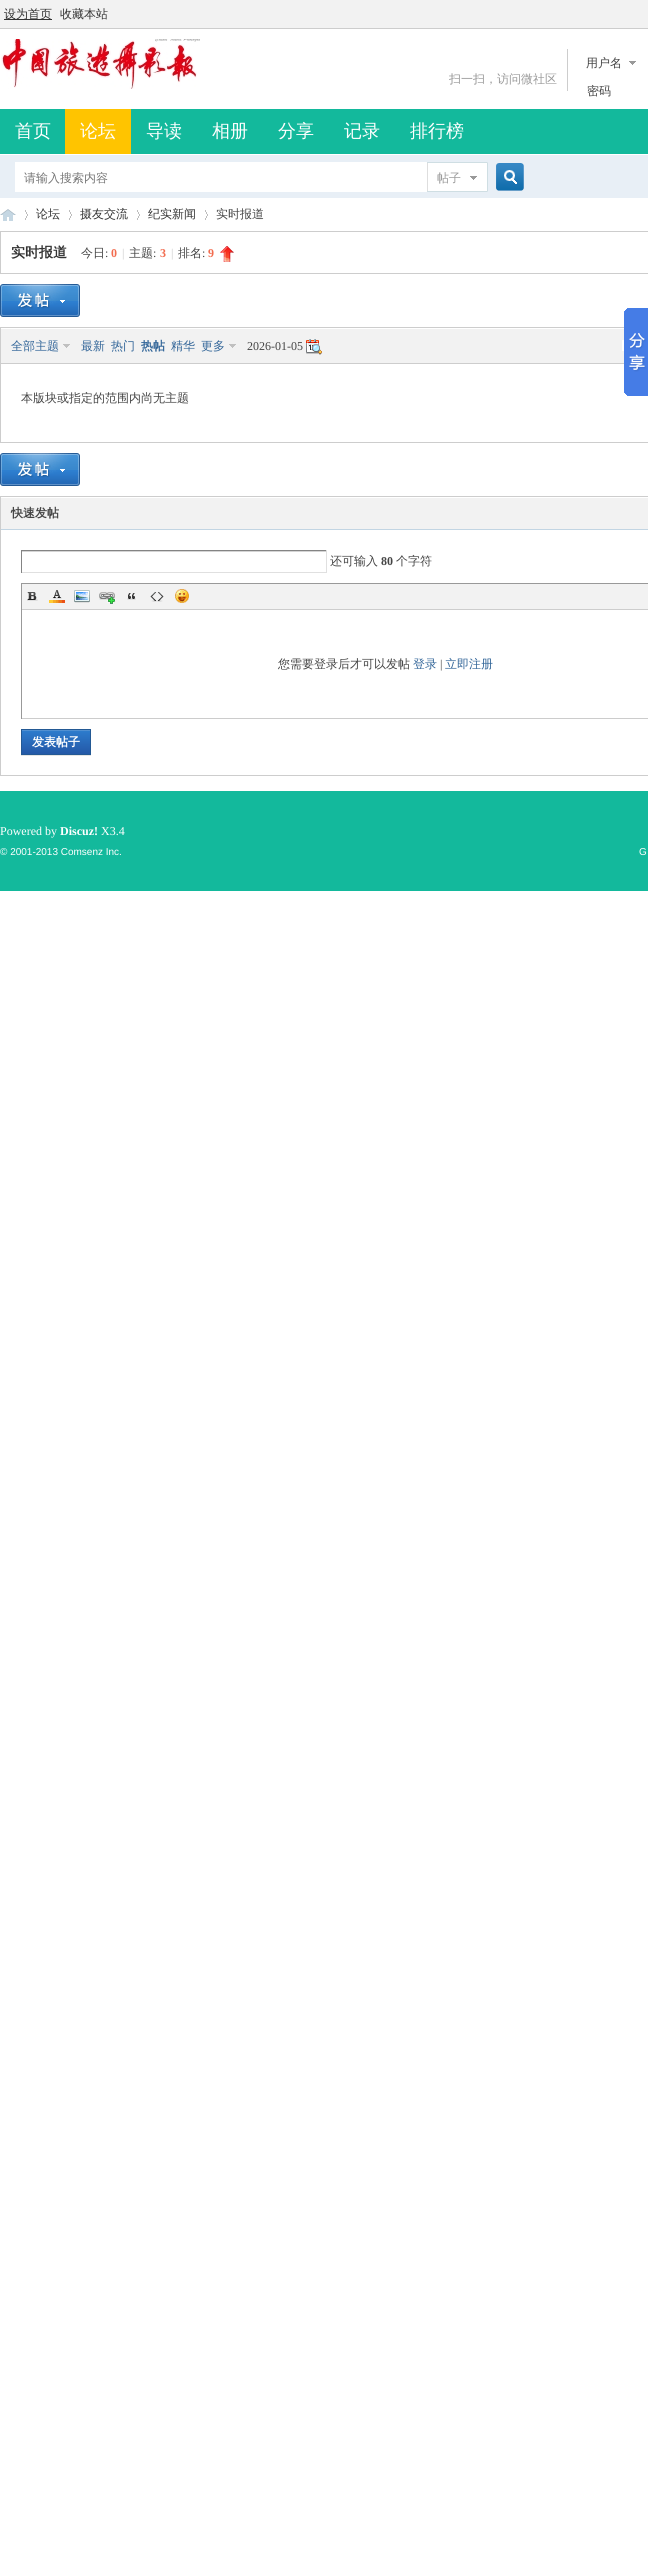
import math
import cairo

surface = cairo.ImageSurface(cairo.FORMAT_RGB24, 648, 2552)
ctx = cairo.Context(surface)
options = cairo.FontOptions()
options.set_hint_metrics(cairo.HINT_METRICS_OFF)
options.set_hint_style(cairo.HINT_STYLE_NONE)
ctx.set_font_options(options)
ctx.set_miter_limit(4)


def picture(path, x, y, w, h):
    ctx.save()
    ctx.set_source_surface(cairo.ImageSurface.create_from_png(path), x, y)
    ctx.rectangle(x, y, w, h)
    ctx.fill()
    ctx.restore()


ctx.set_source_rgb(1, 1, 1)
ctx.paint()
ctx.set_source_rgb(0.949, 0.949, 0.949)
ctx.rectangle(0, 0, 648, 28)
ctx.fill()
ctx.set_source_rgb(0.804, 0.804, 0.804)
ctx.rectangle(0, 28, 648, 1)
ctx.fill()
ctx.set_source_rgb(0.2, 0.2, 0.2)
ctx.rectangle(4, 19, 48, 1)
ctx.fill()
ctx.select_font_face("WenQuanYi Zen Hei Medium")
ctx.set_font_size(12)
ctx.move_to(4, 18)
ctx.show_text("设为首页")
ctx.move_to(60, 18)
ctx.show_text("收藏本站")
picture("img1.png", 1, 39, 199, 50)
ctx.set_source_rgb(0.804, 0.804, 0.804)
ctx.rectangle(567, 49, 1, 42)
ctx.fill()
ctx.set_source_rgb(0.6, 0.6, 0.6)
ctx.move_to(449, 83)
ctx.show_text("扫一扫，访问微社区")
picture("img2.png", 629, 61, 7, 4)
ctx.set_source_rgb(0.267, 0.267, 0.267)
ctx.move_to(586, 67)
ctx.show_text("用户名")
ctx.move_to(587, 95)
ctx.show_text("密码")
ctx.set_source_rgb(0.078, 0.725, 0.612)
ctx.rectangle(0, 109, 648, 45)
ctx.fill()
ctx.set_font_size(18)
ctx.set_source_rgb(1, 1, 1)
ctx.move_to(15, 137)
ctx.show_text("首页")
ctx.set_source_rgb(1, 0.769, 0)
ctx.rectangle(65, 109, 66, 45)
ctx.fill()
ctx.set_source_rgb(1, 1, 1)
ctx.move_to(80, 137)
ctx.show_text("论坛")
ctx.move_to(146, 137)
ctx.show_text("导读")
ctx.move_to(212, 137)
ctx.show_text("相册")
ctx.move_to(278, 137)
ctx.show_text("分享")
ctx.move_to(344, 137)
ctx.show_text("记录")
ctx.move_to(410, 137)
ctx.show_text("排行榜")
ctx.set_source_rgb(0.91, 0.937, 0.961)
ctx.rectangle(0, 155, 648, 43)
ctx.fill()
ctx.set_source_rgb(1, 1, 1)
ctx.rectangle(15, 162, 412, 30)
ctx.fill()
picture("img3.png", 496, 163, 28, 28)
ctx.set_font_size(12)
ctx.set_source_rgb(0.459, 0.459, 0.459)
ctx.move_to(24, 182)
ctx.show_text("请输入搜索内容")
picture("img4.png", 427, 162, 61, 30)
ctx.set_source_rgb(0.6, 0.6, 0.6)
ctx.move_to(437, 182)
ctx.show_text("帖子")
picture("img5.png", 0, 209, 16, 12)
picture("img6.png", 25, 210, 3, 10)
ctx.set_source_rgb(0.2, 0.2, 0.2)
ctx.move_to(36, 218)
ctx.show_text("论坛")
picture("img6.png", 69, 210, 3, 10)
ctx.move_to(80, 218)
ctx.show_text("摄友交流")
picture("img6.png", 137, 210, 3, 10)
ctx.move_to(148, 218)
ctx.show_text("纪实新闻")
picture("img6.png", 205, 210, 3, 10)
ctx.set_source_rgb(0.267, 0.267, 0.267)
ctx.move_to(216, 218)
ctx.show_text("实时报道")
ctx.rectangle(0.5, 231.5, 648, 42)
ctx.set_source_rgb(0.804, 0.804, 0.804)
ctx.set_line_width(1)
ctx.stroke()
ctx.select_font_face("WenQuanYi Zen Hei", cairo.FONT_SLANT_NORMAL, cairo.FONT_WEIGHT_BOLD)
ctx.set_font_size(14)
ctx.set_source_rgb(0.2, 0.2, 0.2)
ctx.move_to(11, 257)
ctx.show_text("实时报道")
ctx.select_font_face("WenQuanYi Zen Hei Medium")
ctx.set_font_size(12)
ctx.set_source_rgb(0.267, 0.267, 0.267)
ctx.move_to(81, 257)
ctx.show_text("今日")
ctx.select_font_face("Liberation Serif")
ctx.move_to(105, 257)
ctx.show_text(":")
ctx.select_font_face("Liberation Serif", cairo.FONT_SLANT_NORMAL, cairo.FONT_WEIGHT_BOLD)
ctx.set_source_rgb(0.949, 0.424, 0.31)
ctx.move_to(111, 257)
ctx.show_text("0")
ctx.select_font_face("Liberation Serif")
ctx.set_source_rgb(0.8, 0.8, 0.8)
ctx.move_to(122, 257)
ctx.show_text("|")
ctx.select_font_face("WenQuanYi Zen Hei Medium")
ctx.set_source_rgb(0.267, 0.267, 0.267)
ctx.move_to(129, 257)
ctx.show_text("主题")
ctx.select_font_face("Liberation Serif")
ctx.move_to(153, 257)
ctx.show_text(":")
ctx.select_font_face("Liberation Serif", cairo.FONT_SLANT_NORMAL, cairo.FONT_WEIGHT_BOLD)
ctx.set_source_rgb(0.949, 0.424, 0.31)
ctx.move_to(160, 257)
ctx.show_text("3")
ctx.select_font_face("Liberation Serif")
ctx.set_source_rgb(0.8, 0.8, 0.8)
ctx.move_to(171, 257)
ctx.show_text("|")
ctx.select_font_face("WenQuanYi Zen Hei Medium")
ctx.set_source_rgb(0.267, 0.267, 0.267)
ctx.move_to(178, 257)
ctx.show_text("排名")
ctx.select_font_face("Liberation Serif")
ctx.move_to(202, 257)
ctx.show_text(":")
ctx.select_font_face("Liberation Serif", cairo.FONT_SLANT_NORMAL, cairo.FONT_WEIGHT_BOLD)
ctx.set_source_rgb(0.949, 0.424, 0.31)
ctx.move_to(208, 257)
ctx.show_text("9")
picture("img7.png", 220, 246, 14, 16)
picture("img8.png", 0, 284, 80, 33)
ctx.rectangle(0.5, 327.5, 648, 115)
ctx.set_source_rgb(0.804, 0.804, 0.804)
ctx.stroke()
ctx.set_source_rgb(0.949, 0.949, 0.949)
ctx.rectangle(1, 329, 623, 34)
ctx.fill()
ctx.set_source_rgb(0.804, 0.804, 0.804)
ctx.rectangle(1, 363, 623, 1)
ctx.fill()
ctx.select_font_face("WenQuanYi Zen Hei Medium")
ctx.set_source_rgb(0.2, 0.4, 0.6)
ctx.move_to(11, 350)
ctx.show_text("全部主题")
picture("img9.png", 63, 344, 7, 4)
ctx.move_to(81, 350)
ctx.show_text("最新")
ctx.move_to(111, 350)
ctx.show_text("热门")
ctx.select_font_face("WenQuanYi Zen Hei", cairo.FONT_SLANT_NORMAL, cairo.FONT_WEIGHT_BOLD)
ctx.move_to(141, 350)
ctx.show_text("热帖")
ctx.select_font_face("WenQuanYi Zen Hei Medium")
ctx.move_to(171, 350)
ctx.show_text("精华")
ctx.move_to(201, 350)
ctx.show_text("更多")
picture("img9.png", 229, 344, 7, 4)
ctx.select_font_face("Liberation Serif")
ctx.set_source_rgb(0.267, 0.267, 0.267)
ctx.move_to(247, 350)
ctx.show_text("2026-01-05")
picture("img10.png", 306, 339, 16, 16)
ctx.set_source_rgb(1, 1, 1)
ctx.rectangle(622, 340, 2, 11)
ctx.fill()
ctx.select_font_face("WenQuanYi Zen Hei Medium")
ctx.set_source_rgb(0.267, 0.267, 0.267)
ctx.move_to(21, 402)
ctx.show_text("本版块或指定的范围内尚无主题")
picture("img8.png", 0, 453, 80, 33)
ctx.rectangle(0.5, 496.5, 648, 279)
ctx.set_source_rgb(0.804, 0.804, 0.804)
ctx.stroke()
ctx.set_source_rgb(0.949, 0.949, 0.949)
ctx.rectangle(1, 498, 647, 31)
ctx.fill()
ctx.set_source_rgb(0.761, 0.835, 0.89)
ctx.rectangle(1, 529, 647, 1)
ctx.fill()
ctx.select_font_face("WenQuanYi Zen Hei", cairo.FONT_SLANT_NORMAL, cairo.FONT_WEIGHT_BOLD)
ctx.set_source_rgb(0.267, 0.267, 0.267)
ctx.move_to(11, 517)
ctx.show_text("快速发帖")
ctx.set_source_rgb(0.831, 0.831, 0.831)
ctx.rectangle(21, 551, 306, 1)
ctx.fill()
ctx.set_source_rgb(0.518, 0.518, 0.518)
ctx.rectangle(21, 550, 306, 1)
ctx.fill()
ctx.set_source_rgb(0.878, 0.878, 0.878)
ctx.rectangle(326, 550, 1, 23)
ctx.fill()
ctx.rectangle(21, 572, 306, 1)
ctx.fill()
ctx.set_source_rgb(0.518, 0.518, 0.518)
ctx.rectangle(21, 550, 1, 23)
ctx.fill()
ctx.select_font_face("WenQuanYi Zen Hei Medium")
ctx.set_source_rgb(0.267, 0.267, 0.267)
ctx.move_to(330, 565)
ctx.show_text("还可输入")
ctx.select_font_face("Liberation Serif", cairo.FONT_SLANT_NORMAL, cairo.FONT_WEIGHT_BOLD)
ctx.move_to(381, 565)
ctx.show_text("80")
ctx.select_font_face("WenQuanYi Zen Hei Medium")
ctx.move_to(396, 565)
ctx.show_text("个字符")
ctx.set_source_rgb(0.6, 0.6, 0.6)
ctx.rectangle(21, 583, 627, 1)
ctx.fill()
ctx.set_source_rgb(0.8, 0.8, 0.8)
ctx.rectangle(21, 718, 627, 1)
ctx.fill()
ctx.set_source_rgb(0.6, 0.6, 0.6)
ctx.rectangle(21, 583, 1, 136)
ctx.fill()
ctx.set_source_rgb(0.949, 0.949, 0.949)
ctx.rectangle(22, 584, 626, 25)
ctx.fill()
ctx.set_source_rgb(0.804, 0.804, 0.804)
ctx.rectangle(22, 609, 626, 1)
ctx.fill()
picture("img11.png", 27, 592, 11, 9)
picture("img12.png", 49, 590, 16, 13)
picture("img13.png", 74, 590, 16, 13)
picture("img14.png", 99, 592, 17, 12)
picture("img15.png", 127, 593, 9, 7)
picture("img16.png", 150, 592, 14, 10)
picture("img17.png", 174, 589, 15, 14)
ctx.set_source_rgb(0.267, 0.267, 0.267)
ctx.move_to(278, 668)
ctx.show_text("您需要登录后才可以发帖")
ctx.set_source_rgb(0.2, 0.4, 0.6)
ctx.move_to(413, 668)
ctx.show_text("登录")
ctx.select_font_face("Liberation Serif")
ctx.set_source_rgb(0.267, 0.267, 0.267)
ctx.move_to(440, 668)
ctx.show_text("|")
ctx.select_font_face("WenQuanYi Zen Hei Medium")
ctx.set_source_rgb(0.2, 0.4, 0.6)
ctx.move_to(445, 668)
ctx.show_text("立即注册")
ctx.set_source_rgb(0.898, 0.898, 0.898)
ctx.rectangle(21, 755, 70, 1)
ctx.fill()
picture("img18.png", 22, 730, 68, 24)
ctx.rectangle(21.5, 729.5, 69, 25)
ctx.set_source_rgb(0.137, 0.349, 0.58)
ctx.stroke()
ctx.select_font_face("WenQuanYi Zen Hei", cairo.FONT_SLANT_NORMAL, cairo.FONT_WEIGHT_BOLD)
ctx.set_source_rgb(1, 1, 1)
ctx.move_to(32, 746)
ctx.show_text("发表帖子")
picture("img19.png", 624, 308, 24, 88)
ctx.set_source_rgb(0.078, 0.725, 0.612)
ctx.rectangle(0, 791, 648, 100)
ctx.fill()
ctx.select_font_face("Liberation Serif")
ctx.set_source_rgb(1, 1, 1)
ctx.move_to(0, 835)
ctx.show_text("Powered by")
ctx.select_font_face("Liberation Serif", cairo.FONT_SLANT_NORMAL, cairo.FONT_WEIGHT_BOLD)
ctx.move_to(60, 835)
ctx.show_text("Discuz!")
ctx.select_font_face("Liberation Serif")
ctx.move_to(101, 835)
ctx.show_text("X3.4")
ctx.select_font_face("Liberation Sans")
ctx.set_font_size(10)
ctx.move_to(0, 855)
ctx.show_text("© 2001-2013 Comsenz Inc.")
ctx.move_to(639, 855)
ctx.show_text("G")
surface.write_to_png("page.png")
